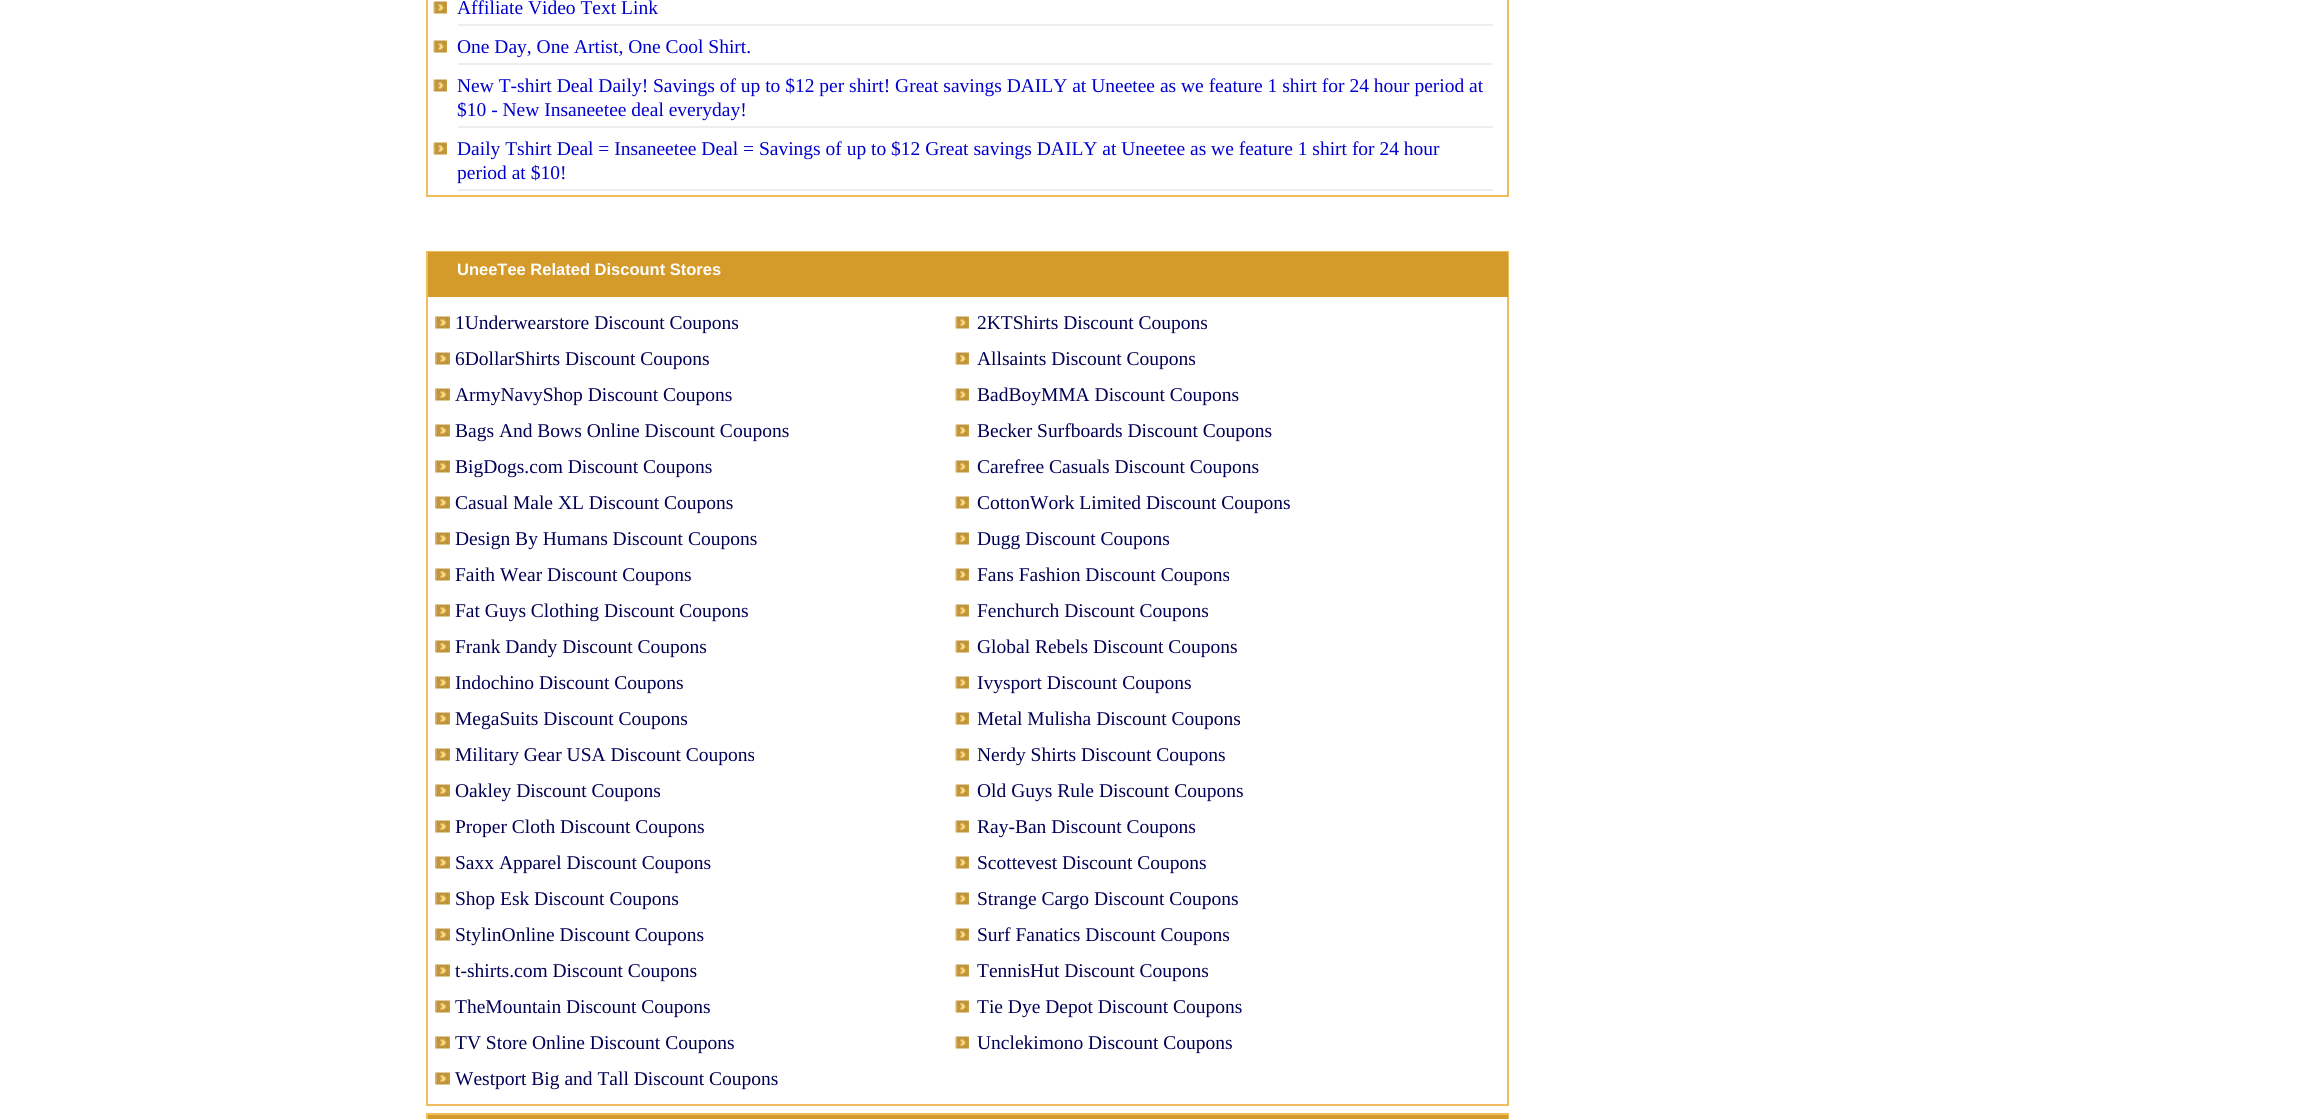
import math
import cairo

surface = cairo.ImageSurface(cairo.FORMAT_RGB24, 2308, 1119)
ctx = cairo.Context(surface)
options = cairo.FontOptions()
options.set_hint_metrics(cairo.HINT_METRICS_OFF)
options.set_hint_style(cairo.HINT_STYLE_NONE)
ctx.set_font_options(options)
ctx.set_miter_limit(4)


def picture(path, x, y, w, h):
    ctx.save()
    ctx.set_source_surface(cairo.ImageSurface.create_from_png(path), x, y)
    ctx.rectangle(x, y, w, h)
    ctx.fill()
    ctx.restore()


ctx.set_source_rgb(1, 1, 1)
ctx.paint()
ctx.rectangle(427, -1, 1081, 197)
ctx.set_source_rgb(0.937, 0.737, 0.369)
ctx.stroke()
ctx.set_source_rgb(0.933, 0.933, 0.933)
ctx.rectangle(458, 24, 1035, 2)
ctx.fill()
picture("img1.png", 433, 1, 14, 13)
ctx.select_font_face("Liberation Serif")
ctx.set_font_size(19.5)
ctx.set_source_rgb(0, 0, 0.8)
ctx.move_to(457, 14)
ctx.show_text("Affiliate Video Text Link")
ctx.set_source_rgb(0.933, 0.933, 0.933)
ctx.rectangle(458, 63, 1035, 2)
ctx.fill()
picture("img1.png", 433, 40, 14, 13)
ctx.set_source_rgb(0, 0, 0.8)
ctx.move_to(457, 53)
ctx.show_text("One Day, One Artist, One Cool Shirt.")
ctx.set_source_rgb(0.933, 0.933, 0.933)
ctx.rectangle(458, 126, 1035, 2)
ctx.fill()
picture("img1.png", 433, 79, 14, 13)
ctx.set_source_rgb(0, 0, 0.8)
ctx.move_to(457, 92)
ctx.show_text("New T-shirt Deal Daily! Savings of up to $12 per shirt! Great savings DAILY at Uneetee as we feature 1 shirt for 24 hour period at")
ctx.move_to(457, 116)
ctx.show_text("$10 - New Insaneetee deal everyday!")
ctx.set_source_rgb(0.933, 0.933, 0.933)
ctx.rectangle(458, 189, 1035, 2)
ctx.fill()
picture("img1.png", 433, 142, 14, 13)
ctx.set_source_rgb(0, 0, 0.8)
ctx.move_to(457, 155)
ctx.show_text("Daily Tshirt Deal = Insaneetee Deal = Savings of up to $12 Great savings DAILY at Uneetee as we feature 1 shirt for 24 hour")
ctx.move_to(457, 179)
ctx.show_text("period at $10!")
ctx.rectangle(427, 252, 1081, 853)
ctx.set_source_rgb(0.937, 0.737, 0.369)
ctx.stroke()
ctx.set_source_rgb(0.831, 0.608, 0.165)
ctx.rectangle(428, 252, 1080, 45)
ctx.fill()
ctx.select_font_face("Liberation Sans", cairo.FONT_SLANT_NORMAL, cairo.FONT_WEIGHT_BOLD)
ctx.set_font_size(16.5)
ctx.set_source_rgb(1, 1, 1)
ctx.move_to(457, 275)
ctx.show_text("UneeTee Related Discount Stores")
picture("img2.png", 435, 316, 15, 13)
ctx.select_font_face("Liberation Serif")
ctx.set_font_size(19.5)
ctx.set_source_rgb(0, 0, 0.333)
ctx.move_to(455, 329)
ctx.show_text("1Underwearstore Discount Coupons")
picture("img3.png", 955, 316, 14, 13)
ctx.move_to(977, 329)
ctx.show_text("2KTShirts Discount Coupons")
picture("img2.png", 435, 352, 15, 13)
ctx.move_to(455, 365)
ctx.show_text("6DollarShirts Discount Coupons")
picture("img3.png", 955, 352, 14, 13)
ctx.move_to(977, 365)
ctx.show_text("Allsaints Discount Coupons")
picture("img2.png", 435, 388, 15, 13)
ctx.move_to(455, 401)
ctx.show_text("ArmyNavyShop Discount Coupons")
picture("img3.png", 955, 388, 14, 13)
ctx.move_to(977, 401)
ctx.show_text("BadBoyMMA Discount Coupons")
picture("img2.png", 435, 424, 15, 13)
ctx.move_to(455, 437)
ctx.show_text("Bags And Bows Online Discount Coupons")
picture("img3.png", 955, 424, 14, 13)
ctx.move_to(977, 437)
ctx.show_text("Becker Surfboards Discount Coupons")
picture("img2.png", 435, 460, 15, 13)
ctx.move_to(455, 473)
ctx.show_text("BigDogs.com Discount Coupons")
picture("img3.png", 955, 460, 14, 13)
ctx.move_to(977, 473)
ctx.show_text("Carefree Casuals Discount Coupons")
picture("img2.png", 435, 496, 15, 13)
ctx.move_to(455, 509)
ctx.show_text("Casual Male XL Discount Coupons")
picture("img3.png", 955, 496, 14, 13)
ctx.move_to(977, 509)
ctx.show_text("CottonWork Limited Discount Coupons")
picture("img2.png", 435, 532, 15, 13)
ctx.move_to(455, 545)
ctx.show_text("Design By Humans Discount Coupons")
picture("img3.png", 955, 532, 14, 13)
ctx.move_to(977, 545)
ctx.show_text("Dugg Discount Coupons")
picture("img2.png", 435, 568, 15, 13)
ctx.move_to(455, 581)
ctx.show_text("Faith Wear Discount Coupons")
picture("img3.png", 955, 568, 14, 13)
ctx.move_to(977, 581)
ctx.show_text("Fans Fashion Discount Coupons")
picture("img2.png", 435, 604, 15, 13)
ctx.move_to(455, 617)
ctx.show_text("Fat Guys Clothing Discount Coupons")
picture("img3.png", 955, 604, 14, 13)
ctx.move_to(977, 617)
ctx.show_text("Fenchurch Discount Coupons")
picture("img2.png", 435, 640, 15, 13)
ctx.move_to(455, 653)
ctx.show_text("Frank Dandy Discount Coupons")
picture("img3.png", 955, 640, 14, 13)
ctx.move_to(977, 653)
ctx.show_text("Global Rebels Discount Coupons")
picture("img2.png", 435, 676, 15, 13)
ctx.move_to(455, 689)
ctx.show_text("Indochino Discount Coupons")
picture("img3.png", 955, 676, 14, 13)
ctx.move_to(977, 689)
ctx.show_text("Ivysport Discount Coupons")
picture("img2.png", 435, 712, 15, 13)
ctx.move_to(455, 725)
ctx.show_text("MegaSuits Discount Coupons")
picture("img3.png", 955, 712, 14, 13)
ctx.move_to(977, 725)
ctx.show_text("Metal Mulisha Discount Coupons")
picture("img2.png", 435, 748, 15, 13)
ctx.move_to(455, 761)
ctx.show_text("Military Gear USA Discount Coupons")
picture("img3.png", 955, 748, 14, 13)
ctx.move_to(977, 761)
ctx.show_text("Nerdy Shirts Discount Coupons")
picture("img2.png", 435, 784, 15, 13)
ctx.move_to(455, 797)
ctx.show_text("Oakley Discount Coupons")
picture("img3.png", 955, 784, 14, 13)
ctx.move_to(977, 797)
ctx.show_text("Old Guys Rule Discount Coupons")
picture("img2.png", 435, 820, 15, 13)
ctx.move_to(455, 833)
ctx.show_text("Proper Cloth Discount Coupons")
picture("img3.png", 955, 820, 14, 13)
ctx.move_to(977, 833)
ctx.show_text("Ray-Ban Discount Coupons")
picture("img2.png", 435, 856, 15, 13)
ctx.move_to(455, 869)
ctx.show_text("Saxx Apparel Discount Coupons")
picture("img3.png", 955, 856, 14, 13)
ctx.move_to(977, 869)
ctx.show_text("Scottevest Discount Coupons")
picture("img2.png", 435, 892, 15, 13)
ctx.move_to(455, 905)
ctx.show_text("Shop Esk Discount Coupons")
picture("img3.png", 955, 892, 14, 13)
ctx.move_to(977, 905)
ctx.show_text("Strange Cargo Discount Coupons")
picture("img2.png", 435, 928, 15, 13)
ctx.move_to(455, 941)
ctx.show_text("StylinOnline Discount Coupons")
picture("img3.png", 955, 928, 14, 13)
ctx.move_to(977, 941)
ctx.show_text("Surf Fanatics Discount Coupons")
picture("img2.png", 435, 964, 15, 13)
ctx.move_to(455, 977)
ctx.show_text("t-shirts.com Discount Coupons")
picture("img3.png", 955, 964, 14, 13)
ctx.move_to(977, 977)
ctx.show_text("TennisHut Discount Coupons")
picture("img2.png", 435, 1000, 15, 13)
ctx.move_to(455, 1013)
ctx.show_text("TheMountain Discount Coupons")
picture("img3.png", 955, 1000, 14, 13)
ctx.move_to(977, 1013)
ctx.show_text("Tie Dye Depot Discount Coupons")
picture("img2.png", 435, 1036, 15, 13)
ctx.move_to(455, 1049)
ctx.show_text("TV Store Online Discount Coupons")
picture("img3.png", 955, 1036, 14, 13)
ctx.move_to(977, 1049)
ctx.show_text("Unclekimono Discount Coupons")
picture("img2.png", 435, 1072, 15, 13)
ctx.move_to(455, 1085)
ctx.show_text("Westport Big and Tall Discount Coupons")
ctx.rectangle(427, 1114, 1081, 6)
ctx.set_source_rgb(0.937, 0.737, 0.369)
ctx.stroke()
ctx.set_source_rgb(0.831, 0.608, 0.165)
ctx.rectangle(428, 1115, 1080, 4)
ctx.fill()
surface.write_to_png("page.png")
